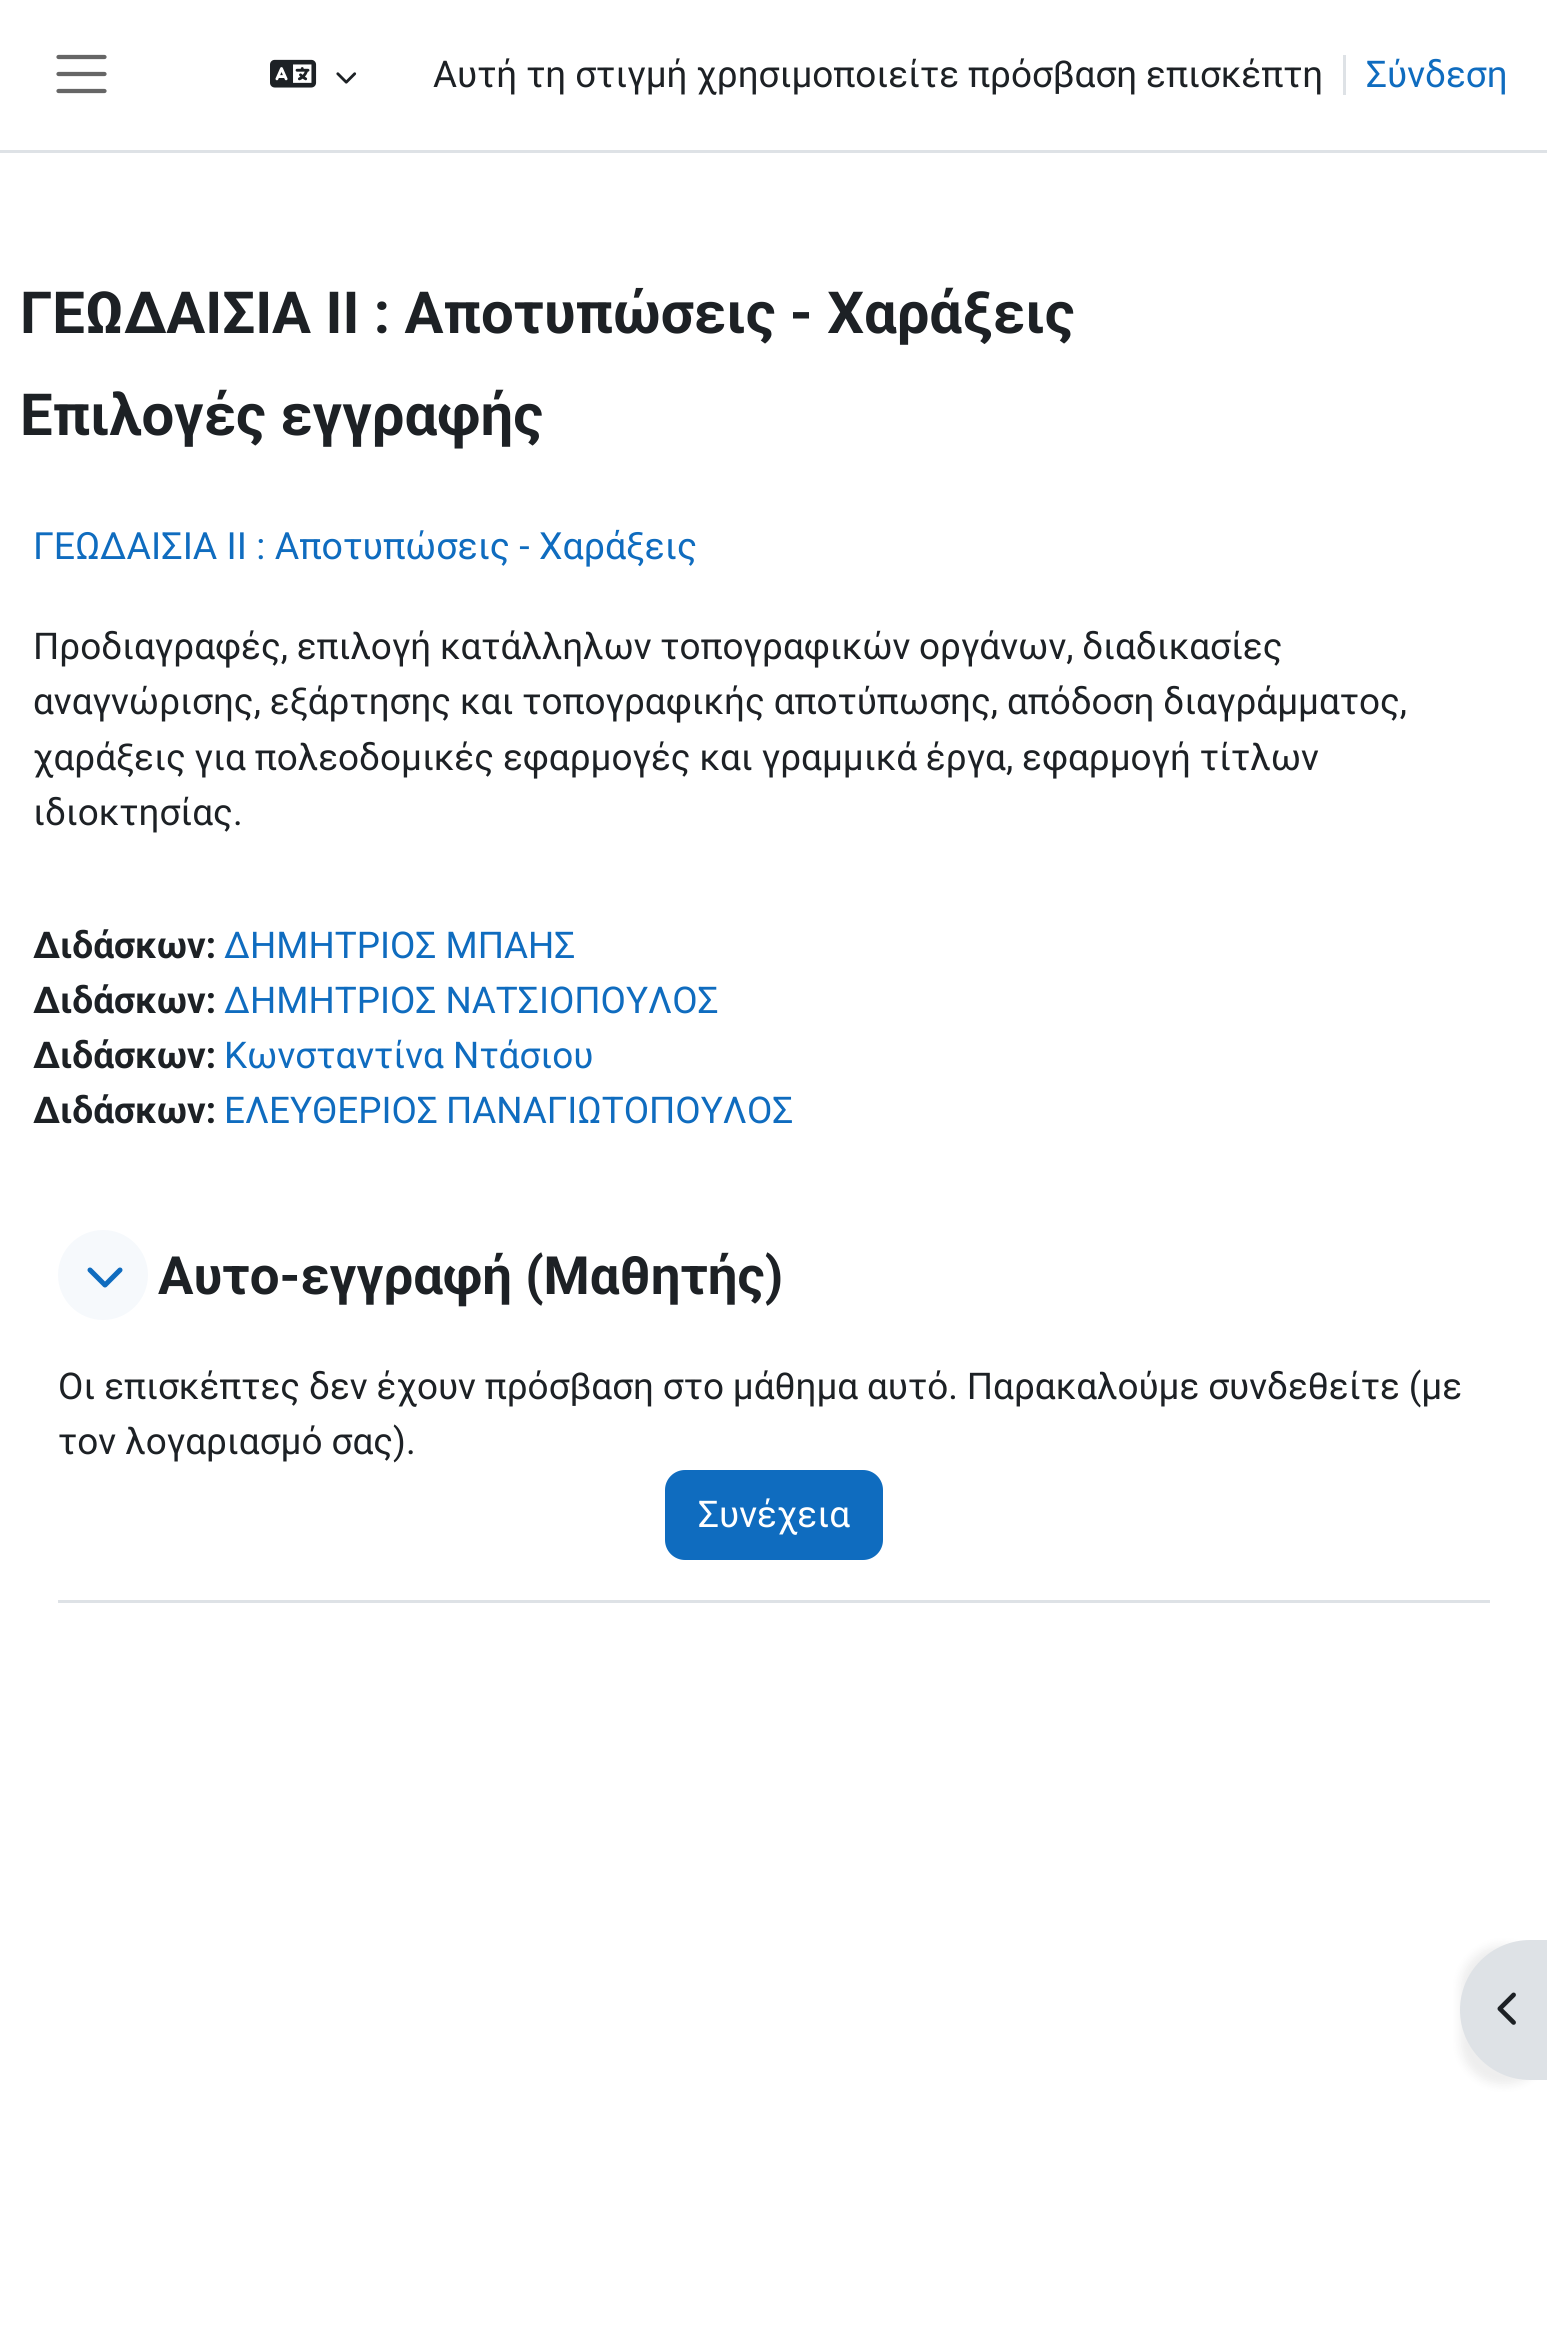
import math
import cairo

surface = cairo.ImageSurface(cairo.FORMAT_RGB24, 1547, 2337)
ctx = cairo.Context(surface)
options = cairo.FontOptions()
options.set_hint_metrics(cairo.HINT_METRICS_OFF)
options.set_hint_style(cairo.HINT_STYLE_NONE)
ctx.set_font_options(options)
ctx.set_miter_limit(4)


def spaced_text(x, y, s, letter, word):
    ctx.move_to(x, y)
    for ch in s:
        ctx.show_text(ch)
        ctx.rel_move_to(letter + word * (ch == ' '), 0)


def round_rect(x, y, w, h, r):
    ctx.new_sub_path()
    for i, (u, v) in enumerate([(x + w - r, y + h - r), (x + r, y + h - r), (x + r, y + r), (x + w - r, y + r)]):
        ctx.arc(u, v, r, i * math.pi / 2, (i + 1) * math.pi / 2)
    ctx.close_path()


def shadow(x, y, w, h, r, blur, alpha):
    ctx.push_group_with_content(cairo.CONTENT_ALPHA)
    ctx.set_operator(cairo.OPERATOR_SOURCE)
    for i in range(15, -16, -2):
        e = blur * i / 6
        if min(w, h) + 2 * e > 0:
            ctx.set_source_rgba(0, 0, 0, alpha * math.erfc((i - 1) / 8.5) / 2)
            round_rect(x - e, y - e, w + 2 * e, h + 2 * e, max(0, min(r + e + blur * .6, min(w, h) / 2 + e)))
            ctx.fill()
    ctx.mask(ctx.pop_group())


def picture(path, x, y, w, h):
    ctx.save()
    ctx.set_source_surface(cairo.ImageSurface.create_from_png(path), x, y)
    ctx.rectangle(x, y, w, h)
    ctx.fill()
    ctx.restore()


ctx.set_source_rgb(1, 1, 1)
ctx.paint()
ctx.set_source_rgb(0.871, 0.886, 0.902)
ctx.rectangle(0, 150, 1547, 3)
ctx.fill()
ctx.new_path()
ctx.move_to(58.5, 57)
ctx.line_to(104.5, 57)
ctx.move_to(58.5, 74)
ctx.line_to(104.5, 74)
ctx.move_to(58.5, 91)
ctx.line_to(104.5, 91)
ctx.set_source_rgb(0.4, 0.4, 0.4)
ctx.set_line_width(4.2)
ctx.set_line_cap(cairo.LINE_CAP_ROUND)
ctx.stroke()
picture("img1.png", 270, 59, 47, 29)
picture("img2.png", 336, 72, 21, 12)
ctx.select_font_face("Roboto")
ctx.set_font_size(36.85)
ctx.set_source_rgb(0.114, 0.129, 0.145)
spaced_text(433, 87, "Αυτή τη στιγμή χρησιμοποιείτε πρόσβαση επισκέπτη", 0, -0.25)
ctx.set_source_rgb(0.871, 0.886, 0.902)
ctx.rectangle(1343, 55, 3, 40)
ctx.fill()
ctx.set_source_rgb(0.059, 0.424, 0.749)
ctx.move_to(1366, 87)
ctx.show_text("Σύνδεση")
ctx.select_font_face("Roboto", cairo.FONT_SLANT_NORMAL, cairo.FONT_WEIGHT_BOLD)
ctx.set_font_size(58)
ctx.set_source_rgb(0.114, 0.129, 0.145)
ctx.move_to(20, 333)
ctx.show_text("ΓΕΩΔΑΙΣΙΑ ΙΙ : Αποτυπώσεις - Χαράξεις")
ctx.move_to(20, 435)
ctx.show_text("Επιλογές εγγραφής")
ctx.select_font_face("Roboto")
ctx.set_font_size(37.5)
ctx.set_source_rgb(0.059, 0.424, 0.749)
ctx.move_to(33, 559)
ctx.show_text("ΓΕΩΔΑΙΣΙΑ ΙΙ : Αποτυπώσεις - Χαράξεις")
ctx.set_font_size(36.85)
ctx.set_source_rgb(0.114, 0.129, 0.145)
spaced_text(33, 659, "Προδιαγραφές, επιλογή κατάλληλων τοπογραφικών οργάνων, διαδικασίες", 0, -0.5)
spaced_text(33, 714, "αναγνώρισης, εξάρτησης και τοπογραφικής αποτύπωσης, απόδοση διαγράμματος,", 0, -0.25)
spaced_text(33, 770, "χαράξεις για πολεοδομικές εφαρμογές και γραμμικά έργα, εφαρμογή τίτλων", 0, -0.25)
ctx.move_to(33, 825)
ctx.show_text("ιδιοκτησίας.")
ctx.select_font_face("Roboto", cairo.FONT_SLANT_NORMAL, cairo.FONT_WEIGHT_BOLD)
ctx.move_to(33, 958)
ctx.show_text("Διδάσκων:")
ctx.select_font_face("Roboto")
ctx.set_source_rgb(0.059, 0.424, 0.749)
ctx.move_to(224, 958)
ctx.show_text("ΔΗΜΗΤΡΙΟΣ ΜΠΑΗΣ")
ctx.select_font_face("Roboto", cairo.FONT_SLANT_NORMAL, cairo.FONT_WEIGHT_BOLD)
ctx.set_source_rgb(0.114, 0.129, 0.145)
ctx.move_to(33, 1013)
ctx.show_text("Διδάσκων:")
ctx.select_font_face("Roboto")
ctx.set_source_rgb(0.059, 0.424, 0.749)
ctx.move_to(224, 1013)
ctx.show_text("ΔΗΜΗΤΡΙΟΣ ΝΑΤΣΙΟΠΟΥΛΟΣ")
ctx.select_font_face("Roboto", cairo.FONT_SLANT_NORMAL, cairo.FONT_WEIGHT_BOLD)
ctx.set_source_rgb(0.114, 0.129, 0.145)
ctx.move_to(33, 1068)
ctx.show_text("Διδάσκων:")
ctx.select_font_face("Roboto")
ctx.set_source_rgb(0.059, 0.424, 0.749)
ctx.move_to(224, 1068)
ctx.show_text("Κωνσταντίνα Ντάσιου")
ctx.select_font_face("Roboto", cairo.FONT_SLANT_NORMAL, cairo.FONT_WEIGHT_BOLD)
ctx.set_source_rgb(0.114, 0.129, 0.145)
ctx.move_to(33, 1123)
ctx.show_text("Διδάσκων:")
ctx.select_font_face("Roboto")
ctx.set_source_rgb(0.059, 0.424, 0.749)
spaced_text(224, 1123, "ΕΛΕΥΘΕΡΙΟΣ ΠΑΝΑΓΙΩΤΟΠΟΥΛΟΣ", 0, -1)
ctx.set_source_rgb(0.871, 0.886, 0.902)
ctx.rectangle(58, 1600, 1432, 3)
ctx.fill()
ctx.set_source_rgb(0.961, 0.976, 0.988)
ctx.arc(103, 1275, 45, 0, 2 * math.pi)
ctx.fill()
picture("img3.png", 87, 1267, 36, 21)
ctx.select_font_face("Roboto", cairo.FONT_SLANT_NORMAL, cairo.FONT_WEIGHT_BOLD)
ctx.set_font_size(52.75)
ctx.set_source_rgb(0.114, 0.129, 0.145)
ctx.move_to(158, 1294)
ctx.show_text("Αυτο-εγγραφή (Μαθητής)")
ctx.select_font_face("Roboto")
ctx.set_font_size(36.85)
spaced_text(58, 1399, "Οι επισκέπτες δεν έχουν πρόσβαση στο μάθημα αυτό. Παρακαλούμε συνδεθείτε (με", 0, -0.25)
ctx.move_to(58, 1454)
ctx.show_text("τον λογαριασμό σας).")
ctx.set_source_rgb(0.059, 0.424, 0.749)
round_rect(666.5, 1471.5, 215, 87, 18.5)
ctx.fill_preserve()
ctx.set_line_width(3)
ctx.set_line_cap(cairo.LINE_CAP_BUTT)
ctx.stroke()
ctx.set_source_rgb(1, 1, 1)
ctx.move_to(698, 1527)
ctx.show_text("Συνέχεια")
ctx.set_source_rgb(0, 0, 0)
shadow(1460, 1945, 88, 140, 70, 5, 0.07)
ctx.set_source_rgb(0.871, 0.886, 0.902)
ctx.new_path()
ctx.move_to(1530, 1940)
ctx.line_to(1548, 1940)
ctx.line_to(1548, 2080)
ctx.line_to(1530, 2080)
ctx.curve_to(1491.5, 2080, 1460, 2048.5, 1460, 2010)
ctx.curve_to(1460, 1971.5, 1491.5, 1940, 1530, 1940)
ctx.close_path()
ctx.fill()
picture("img4.png", 1497, 1992, 19, 33)
surface.write_to_png("page.png")
